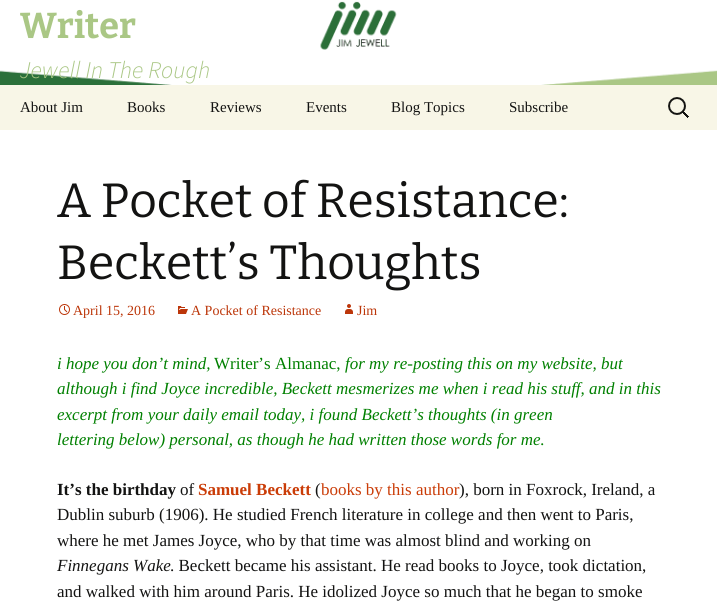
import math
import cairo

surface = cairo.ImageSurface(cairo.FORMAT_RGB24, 717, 604)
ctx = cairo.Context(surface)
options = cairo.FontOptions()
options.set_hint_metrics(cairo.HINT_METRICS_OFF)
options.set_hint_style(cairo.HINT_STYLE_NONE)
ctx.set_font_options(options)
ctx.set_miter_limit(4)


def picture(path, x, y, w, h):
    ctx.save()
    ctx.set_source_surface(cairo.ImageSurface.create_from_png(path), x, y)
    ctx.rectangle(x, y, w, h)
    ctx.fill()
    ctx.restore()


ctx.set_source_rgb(1, 1, 1)
ctx.paint()
picture("img1.png", 0, 1, 717, 84)
ctx.select_font_face("Bitter Thin")
ctx.set_font_size(36)
ctx.set_source_rgb(0.667, 0.78, 0.522)
ctx.move_to(20, 38)
ctx.show_text("Writer")
ctx.select_font_face("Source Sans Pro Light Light", cairo.FONT_SLANT_ITALIC)
ctx.set_font_size(24)
ctx.move_to(20, 78)
ctx.show_text("Jewell In The Rough")
ctx.set_source_rgb(0.969, 0.961, 0.906)
ctx.rectangle(0, 85, 717, 45)
ctx.fill()
ctx.select_font_face("Liberation Serif")
ctx.set_font_size(15)
ctx.set_source_rgb(0.078, 0.078, 0.071)
ctx.move_to(20, 112)
ctx.show_text("About Jim")
ctx.move_to(127, 112)
ctx.show_text("Books")
ctx.move_to(210, 112)
ctx.show_text("Reviews")
ctx.move_to(306, 112)
ctx.show_text("Events")
ctx.move_to(391, 112)
ctx.show_text("Blog Topics")
ctx.move_to(509, 112)
ctx.show_text("Subscribe")
picture("img2.png", 668, 97, 21, 21)
ctx.select_font_face("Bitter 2 Thin")
ctx.set_font_size(48)
ctx.move_to(57, 217)
ctx.show_text("A Pocket of Resistance:")
ctx.move_to(57, 279)
ctx.show_text("Beckett’s Thoughts")
picture("img3.png", 59, 304, 11, 11)
ctx.select_font_face("Liberation Serif")
ctx.set_font_size(14)
ctx.set_source_rgb(0.737, 0.212, 0.039)
ctx.move_to(73, 315)
ctx.show_text("April 15, 2016")
picture("img4.png", 178, 306, 10, 8)
ctx.move_to(191, 315)
ctx.show_text("A Pocket of Resistance")
picture("img5.png", 345, 304, 8, 10)
ctx.move_to(357, 315)
ctx.show_text("Jim")
ctx.select_font_face("Liberation Serif", cairo.FONT_SLANT_ITALIC)
ctx.set_font_size(17)
ctx.set_source_rgb(0, 0.502, 0)
ctx.move_to(57, 369)
ctx.show_text("i hope you don’t mind,")
ctx.select_font_face("Liberation Serif")
ctx.move_to(214, 369)
ctx.show_text("Writer’s Almanac,")
ctx.select_font_face("Liberation Serif", cairo.FONT_SLANT_ITALIC)
ctx.move_to(345, 369)
ctx.show_text("for my re-posting this on my website, but")
ctx.move_to(57, 394)
ctx.show_text("although i find Joyce incredible, Beckett mesmerizes me when i read his stuff, and in this")
ctx.move_to(57, 420)
ctx.show_text("excerpt from your daily email today, i found Beckett’s thoughts (in green")
ctx.move_to(57, 445)
ctx.show_text("lettering below) personal, as though he had written those words for me.")
ctx.select_font_face("Liberation Serif", cairo.FONT_SLANT_NORMAL, cairo.FONT_WEIGHT_BOLD)
ctx.set_source_rgb(0.078, 0.078, 0.071)
ctx.move_to(57, 495)
ctx.show_text("It’s the birthday")
ctx.select_font_face("Liberation Serif")
ctx.move_to(180, 495)
ctx.show_text("of")
ctx.select_font_face("Liberation Serif", cairo.FONT_SLANT_NORMAL, cairo.FONT_WEIGHT_BOLD)
ctx.set_source_rgb(0.792, 0.235, 0.031)
ctx.move_to(198, 495)
ctx.show_text("Samuel Beckett")
ctx.select_font_face("Liberation Serif")
ctx.set_source_rgb(0.078, 0.078, 0.071)
ctx.move_to(315, 495)
ctx.show_text("(")
ctx.set_source_rgb(0.792, 0.235, 0.031)
ctx.move_to(321, 495)
ctx.show_text("books by this author")
ctx.set_source_rgb(0.078, 0.078, 0.071)
ctx.move_to(459, 495)
ctx.show_text("), born in Foxrock, Ireland, a")
ctx.move_to(57, 520)
ctx.show_text("Dublin suburb (1906). He studied French literature in college and then went to Paris,")
ctx.move_to(57, 546)
ctx.show_text("where he met James Joyce, who by that time was almost blind and working on")
ctx.select_font_face("Liberation Serif", cairo.FONT_SLANT_ITALIC)
ctx.move_to(57, 571)
ctx.show_text("Finnegans Wake")
ctx.select_font_face("Liberation Serif")
ctx.move_to(170, 571)
ctx.show_text(". Beckett became his assistant. He read books to Joyce, took dictation,")
ctx.move_to(57, 597)
ctx.show_text("and walked with him around Paris. He idolized Joyce so much that he began to smoke")
surface.write_to_png("page.png")
